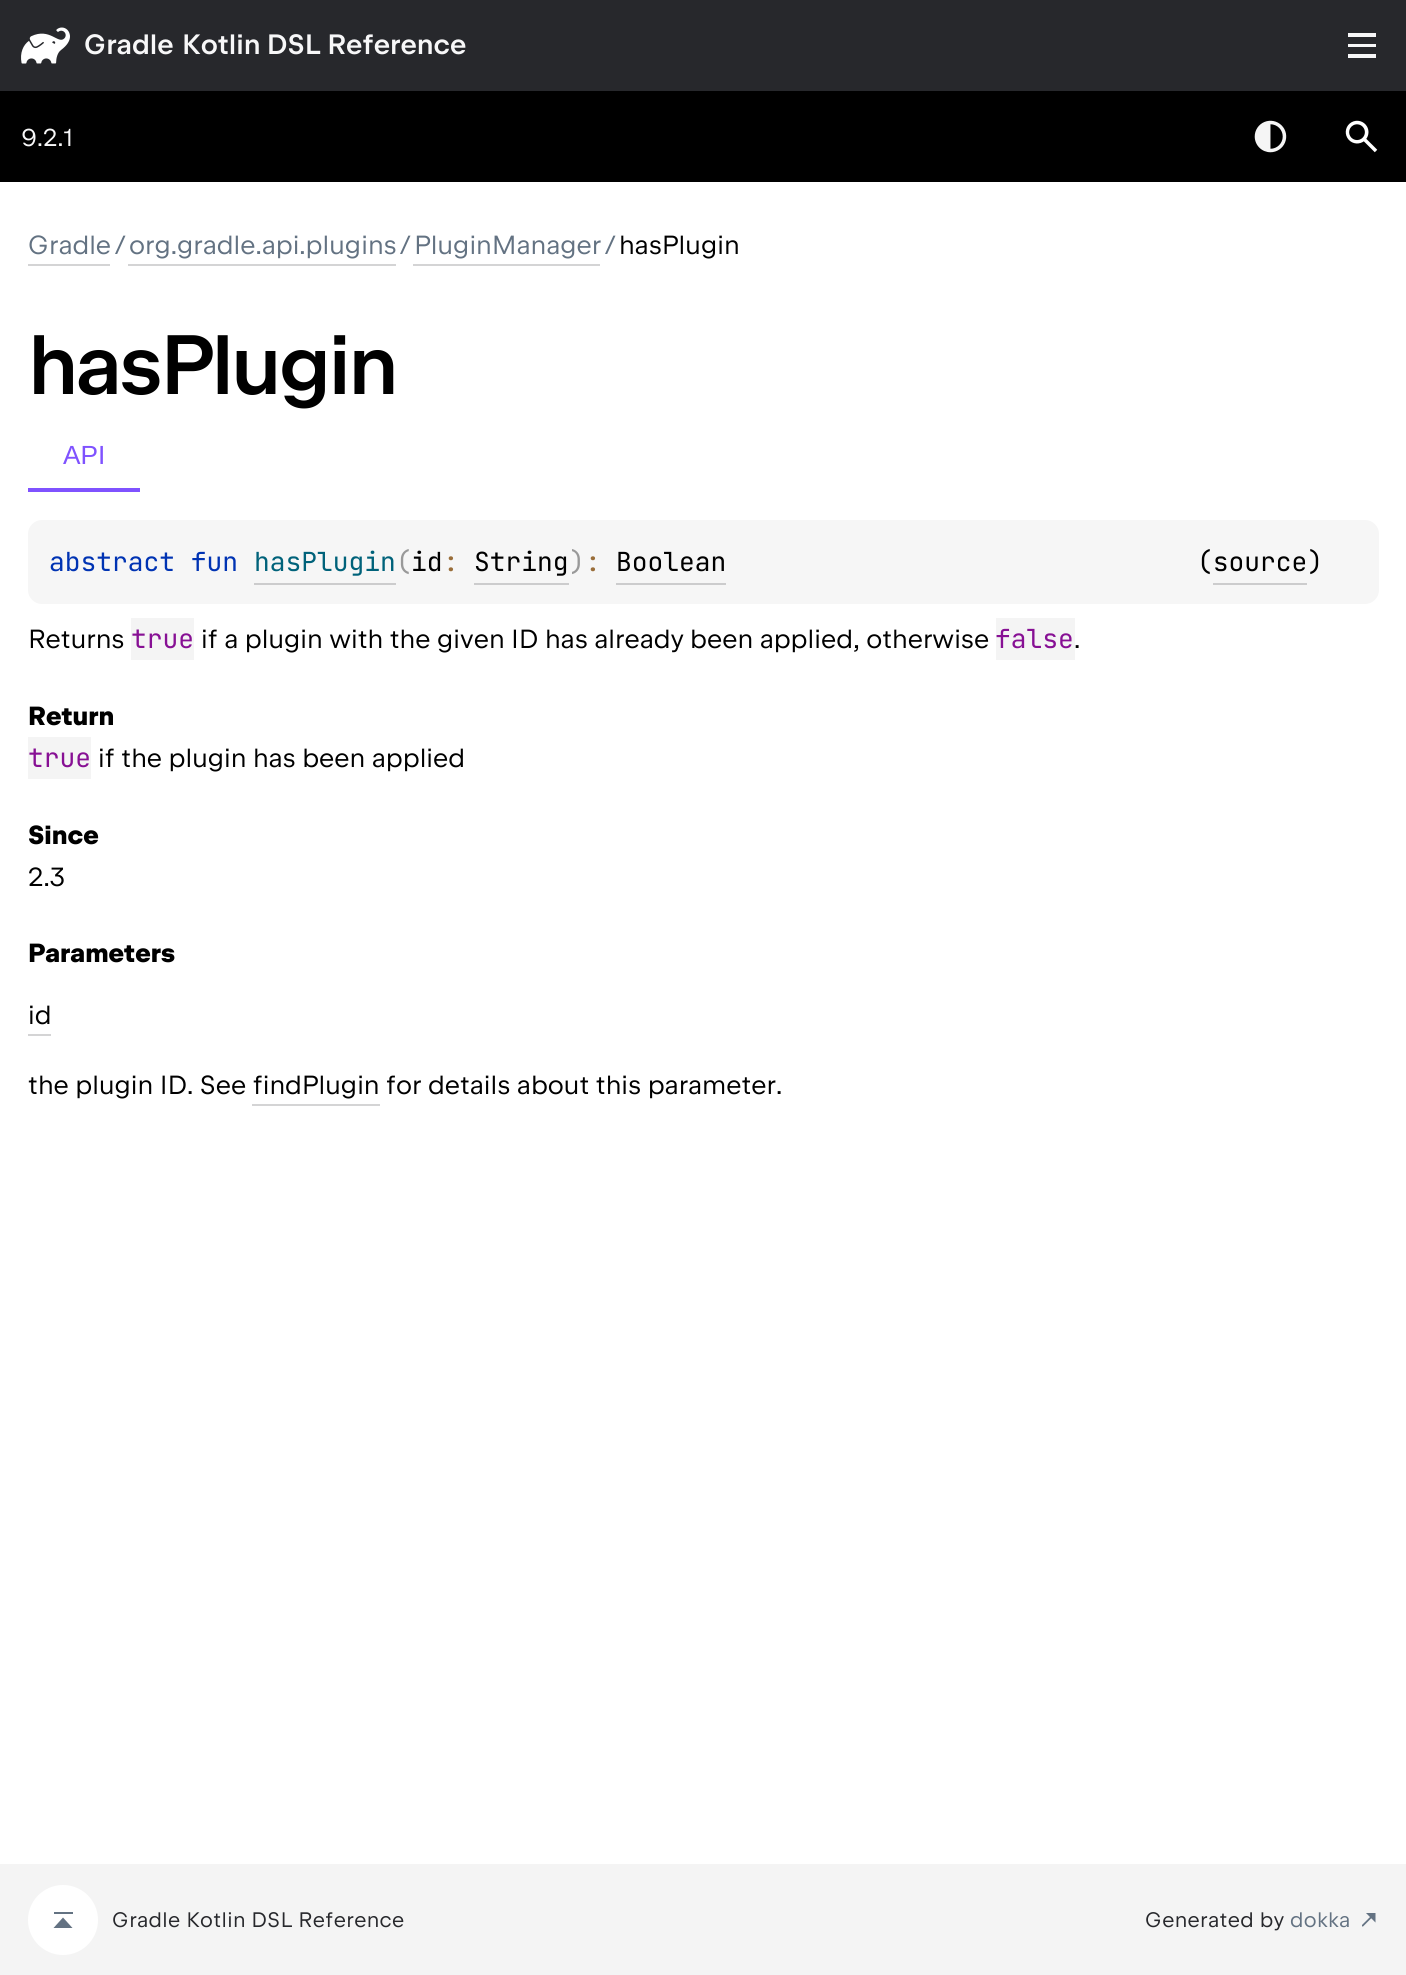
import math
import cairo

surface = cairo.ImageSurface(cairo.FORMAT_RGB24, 1406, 1975)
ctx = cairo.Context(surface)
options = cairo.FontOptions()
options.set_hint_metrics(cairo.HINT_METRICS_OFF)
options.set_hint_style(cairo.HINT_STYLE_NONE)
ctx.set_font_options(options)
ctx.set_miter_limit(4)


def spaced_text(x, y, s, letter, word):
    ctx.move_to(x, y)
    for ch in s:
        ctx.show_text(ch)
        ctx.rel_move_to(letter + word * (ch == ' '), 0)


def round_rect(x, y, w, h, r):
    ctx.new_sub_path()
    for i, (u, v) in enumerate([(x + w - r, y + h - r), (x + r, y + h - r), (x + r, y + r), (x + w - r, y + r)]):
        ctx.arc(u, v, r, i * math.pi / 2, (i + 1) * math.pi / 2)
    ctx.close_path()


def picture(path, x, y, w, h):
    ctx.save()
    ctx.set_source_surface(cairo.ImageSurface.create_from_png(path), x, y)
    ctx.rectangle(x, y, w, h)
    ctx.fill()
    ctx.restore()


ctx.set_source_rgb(1, 1, 1)
ctx.paint()
ctx.set_source_rgb(0.153, 0.157, 0.173)
ctx.rectangle(0, 0, 1406, 91)
ctx.fill()
picture("img1.png", 21, 27, 49, 37)
ctx.select_font_face("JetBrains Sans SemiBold")
ctx.set_font_size(28)
ctx.set_source_rgb(0.965, 0.965, 0.969)
ctx.move_to(84, 54)
ctx.show_text("Gradle")
ctx.move_to(182, 54)
ctx.show_text("Kotlin DSL Reference")
ctx.rectangle(1348, 33, 28, 4)
ctx.fill()
ctx.rectangle(1348, 44, 28, 3)
ctx.fill()
ctx.rectangle(1348, 54, 28, 4)
ctx.fill()
ctx.set_source_rgb(0, 0, 0)
ctx.rectangle(0, 91, 1406, 91)
ctx.fill()
ctx.select_font_face("JetBrains Sans")
ctx.set_font_size(24.5)
ctx.set_source_rgb(0.965, 0.965, 0.969)
ctx.move_to(21, 146)
ctx.show_text("9.2.1")
picture("img2.png", 1254, 120, 33, 33)
picture("img3.png", 1345, 120, 33, 33)
ctx.set_font_size(26.25)
ctx.set_source_rgb(0.388, 0.447, 0.51)
ctx.move_to(28, 254)
ctx.show_text("Gradle")
ctx.set_source_rgb(0.831, 0.831, 0.835)
ctx.rectangle(28, 264, 82, 2)
ctx.fill()
ctx.set_source_rgb(0.388, 0.447, 0.51)
ctx.move_to(115, 254)
ctx.show_text("/")
ctx.move_to(129, 254)
ctx.show_text("org.gradle.api.plugins")
ctx.set_source_rgb(0.831, 0.831, 0.835)
ctx.rectangle(128, 264, 268, 2)
ctx.fill()
ctx.set_source_rgb(0.388, 0.447, 0.51)
ctx.move_to(400, 254)
ctx.show_text("/")
ctx.move_to(414, 254)
ctx.show_text("PluginManager")
ctx.set_source_rgb(0.831, 0.831, 0.835)
ctx.rectangle(413, 264, 187, 2)
ctx.fill()
ctx.set_source_rgb(0.388, 0.447, 0.51)
ctx.move_to(605, 254)
ctx.show_text("/")
ctx.set_source_rgb(0, 0, 0)
ctx.move_to(619, 254)
ctx.show_text("hasPlugin")
ctx.select_font_face("JetBrains Sans Medium")
ctx.set_font_size(84)
spaced_text(28, 394, "hasPlugin", -2.6, 0)
ctx.set_source_rgb(0.498, 0.322, 1)
ctx.rectangle(28, 488, 112, 4)
ctx.fill()
ctx.select_font_face("Liberation Sans")
ctx.set_font_size(26.25)
ctx.move_to(63, 464)
ctx.show_text("API")
ctx.set_source_rgb(0.961, 0.961, 0.961)
round_rect(28, 520, 1351, 84, 14)
ctx.fill()
ctx.select_font_face("JetBrains Mono")
ctx.set_source_rgb(0, 0.2, 0.702)
ctx.move_to(49, 571)
ctx.show_text("abstract fun")
ctx.set_source_rgb(0, 0.384, 0.478)
ctx.move_to(254, 571)
ctx.show_text("hasPlugin")
ctx.set_source_rgb(0.8, 0.8, 0.804)
ctx.rectangle(254, 583, 142, 2)
ctx.fill()
ctx.set_source_rgb(0.6, 0.6, 0.6)
ctx.move_to(396, 571)
ctx.show_text("(")
ctx.set_source_rgb(0, 0, 0)
ctx.move_to(411, 571)
ctx.show_text("id")
ctx.set_source_rgb(0.604, 0.431, 0.227)
ctx.move_to(443, 571)
ctx.show_text(":")
ctx.set_source_rgb(0, 0, 0)
ctx.move_to(474, 571)
ctx.show_text("String")
ctx.set_source_rgb(0.8, 0.8, 0.804)
ctx.rectangle(474, 583, 95, 2)
ctx.fill()
ctx.set_source_rgb(0.6, 0.6, 0.6)
ctx.move_to(569, 571)
ctx.show_text(")")
ctx.set_source_rgb(0.604, 0.431, 0.227)
ctx.move_to(585, 571)
ctx.show_text(":")
ctx.set_source_rgb(0, 0, 0)
ctx.move_to(616, 571)
ctx.show_text("Boolean")
ctx.set_source_rgb(0.8, 0.8, 0.804)
ctx.rectangle(616, 583, 110, 2)
ctx.fill()
ctx.set_source_rgb(0, 0, 0)
ctx.move_to(1197, 571)
ctx.show_text("(source)")
ctx.set_source_rgb(0.8, 0.8, 0.804)
ctx.rectangle(1213, 583, 94, 2)
ctx.fill()
ctx.select_font_face("JetBrains Sans")
ctx.set_source_rgb(0, 0, 0)
ctx.move_to(28, 648)
ctx.show_text("Returns")
ctx.set_source_rgb(0.957, 0.957, 0.957)
ctx.rectangle(131, 618, 63, 42)
ctx.fill()
ctx.select_font_face("JetBrains Mono")
ctx.set_source_rgb(0.529, 0.063, 0.58)
ctx.move_to(131, 648)
ctx.show_text("true")
ctx.select_font_face("JetBrains Sans")
ctx.set_source_rgb(0, 0, 0)
ctx.move_to(201, 648)
ctx.show_text("if a plugin with the given ID has already been applied, otherwise")
ctx.set_source_rgb(0.957, 0.957, 0.957)
ctx.rectangle(996, 618, 79, 42)
ctx.fill()
ctx.select_font_face("JetBrains Mono")
ctx.set_source_rgb(0.529, 0.063, 0.58)
ctx.move_to(995, 648)
ctx.show_text("false")
ctx.select_font_face("JetBrains Sans")
ctx.set_source_rgb(0, 0, 0)
ctx.move_to(1074, 648)
ctx.show_text(".")
ctx.select_font_face("JetBrains Sans", cairo.FONT_SLANT_NORMAL, cairo.FONT_WEIGHT_BOLD)
ctx.move_to(28, 725)
ctx.show_text("Return")
ctx.set_source_rgb(0.957, 0.957, 0.957)
ctx.rectangle(28, 737, 63, 42)
ctx.fill()
ctx.select_font_face("JetBrains Mono")
ctx.set_source_rgb(0.529, 0.063, 0.58)
ctx.move_to(28, 767)
ctx.show_text("true")
ctx.select_font_face("JetBrains Sans")
ctx.set_source_rgb(0, 0, 0)
ctx.move_to(98, 767)
ctx.show_text("if the plugin has been applied")
ctx.select_font_face("JetBrains Sans", cairo.FONT_SLANT_NORMAL, cairo.FONT_WEIGHT_BOLD)
ctx.move_to(28, 844)
ctx.show_text("Since")
ctx.select_font_face("JetBrains Sans")
ctx.move_to(28, 886)
ctx.show_text("2.3")
ctx.select_font_face("JetBrains Sans", cairo.FONT_SLANT_NORMAL, cairo.FONT_WEIGHT_BOLD)
ctx.move_to(28, 962)
ctx.show_text("Parameters")
ctx.select_font_face("JetBrains Sans")
ctx.move_to(28, 1024)
ctx.show_text("id")
ctx.set_source_rgb(0.831, 0.831, 0.835)
ctx.rectangle(28, 1034, 23, 2)
ctx.fill()
ctx.set_source_rgb(0, 0, 0)
ctx.move_to(28, 1094)
ctx.show_text("the plugin ID. See findPlugin")
ctx.move_to(386, 1094)
ctx.show_text("for details about this parameter.")
ctx.set_source_rgb(0.831, 0.831, 0.835)
ctx.rectangle(252, 1104, 128, 2)
ctx.fill()
ctx.set_source_rgb(0.957, 0.957, 0.957)
ctx.rectangle(0, 1864, 1406, 111)
ctx.fill()
ctx.set_source_rgb(1, 1, 1)
ctx.arc(63, 1920, 35, 0, 2 * math.pi)
ctx.fill()
ctx.set_source_rgb(0.388, 0.447, 0.51)
ctx.new_path()
ctx.move_to(72.5, 1928)
ctx.line_to(53.5, 1928)
ctx.line_to(63, 1917.5)
ctx.close_path()
ctx.fill()
ctx.rectangle(54, 1912, 19, 2)
ctx.fill()
ctx.set_font_size(21)
ctx.set_source_rgb(0.153, 0.157, 0.173)
spaced_text(112, 1927, "Gradle Kotlin DSL Reference", 0.35, 0)
spaced_text(1145, 1927, "Generated by", 0.35, 0)
ctx.set_source_rgb(0.388, 0.447, 0.51)
spaced_text(1290, 1927, "dokka", 0.35, 0)
picture("img4.png", 1362, 1913, 14, 14)
surface.write_to_png("page.png")
